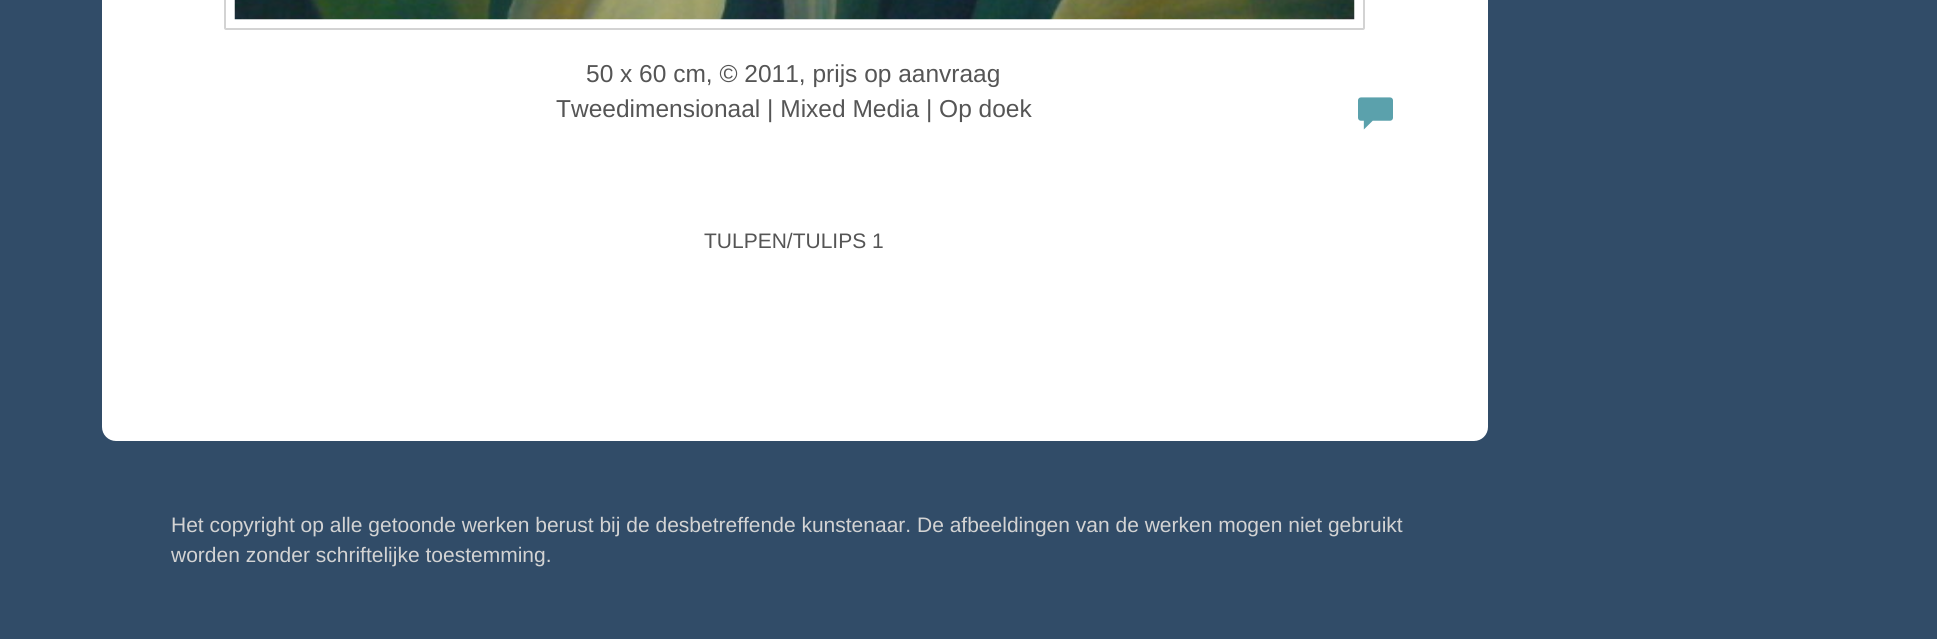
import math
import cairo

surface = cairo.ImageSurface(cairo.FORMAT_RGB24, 1937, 639)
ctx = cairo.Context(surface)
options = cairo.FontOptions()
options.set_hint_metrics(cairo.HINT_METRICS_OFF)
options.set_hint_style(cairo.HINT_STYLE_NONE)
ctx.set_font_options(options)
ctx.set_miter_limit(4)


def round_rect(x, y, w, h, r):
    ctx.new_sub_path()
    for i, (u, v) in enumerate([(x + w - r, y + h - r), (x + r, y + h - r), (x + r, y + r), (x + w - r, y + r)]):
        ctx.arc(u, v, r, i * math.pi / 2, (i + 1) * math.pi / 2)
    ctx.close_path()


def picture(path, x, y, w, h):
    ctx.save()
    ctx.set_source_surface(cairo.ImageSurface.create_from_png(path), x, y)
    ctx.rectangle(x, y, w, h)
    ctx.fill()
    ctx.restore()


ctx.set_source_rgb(0.192, 0.298, 0.408)
ctx.paint()
ctx.set_source_rgb(1, 1, 1)
round_rect(102, -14, 1386, 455, 14)
ctx.fill()
round_rect(225, -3, 1139, 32, 1)
ctx.set_source_rgb(0.827, 0.827, 0.827)
ctx.stroke()
picture("img1.png", 234, 0, 1121, 20)
ctx.select_font_face("Liberation Sans")
ctx.set_font_size(24.5)
ctx.set_source_rgb(0.333, 0.333, 0.333)
ctx.move_to(586, 82)
ctx.show_text("50 x 60 cm, © 2011, prijs op aanvraag")
ctx.move_to(556, 117)
ctx.show_text("Tweedimensionaal | Mixed Media | Op doek")
picture("img2.png", 1358, 97, 35, 33)
ctx.set_font_size(21)
ctx.move_to(704, 248)
ctx.show_text("TULPEN/TULIPS 1")
ctx.set_source_rgb(0.827, 0.827, 0.827)
ctx.move_to(171, 532)
ctx.show_text("Het copyright op alle getoonde werken berust bij de desbetreffende kunstenaar. De afbeeldingen van de werken mogen niet gebruikt")
ctx.move_to(171, 562)
ctx.show_text("worden zonder schriftelijke toestemming.")
surface.write_to_png("page.png")
